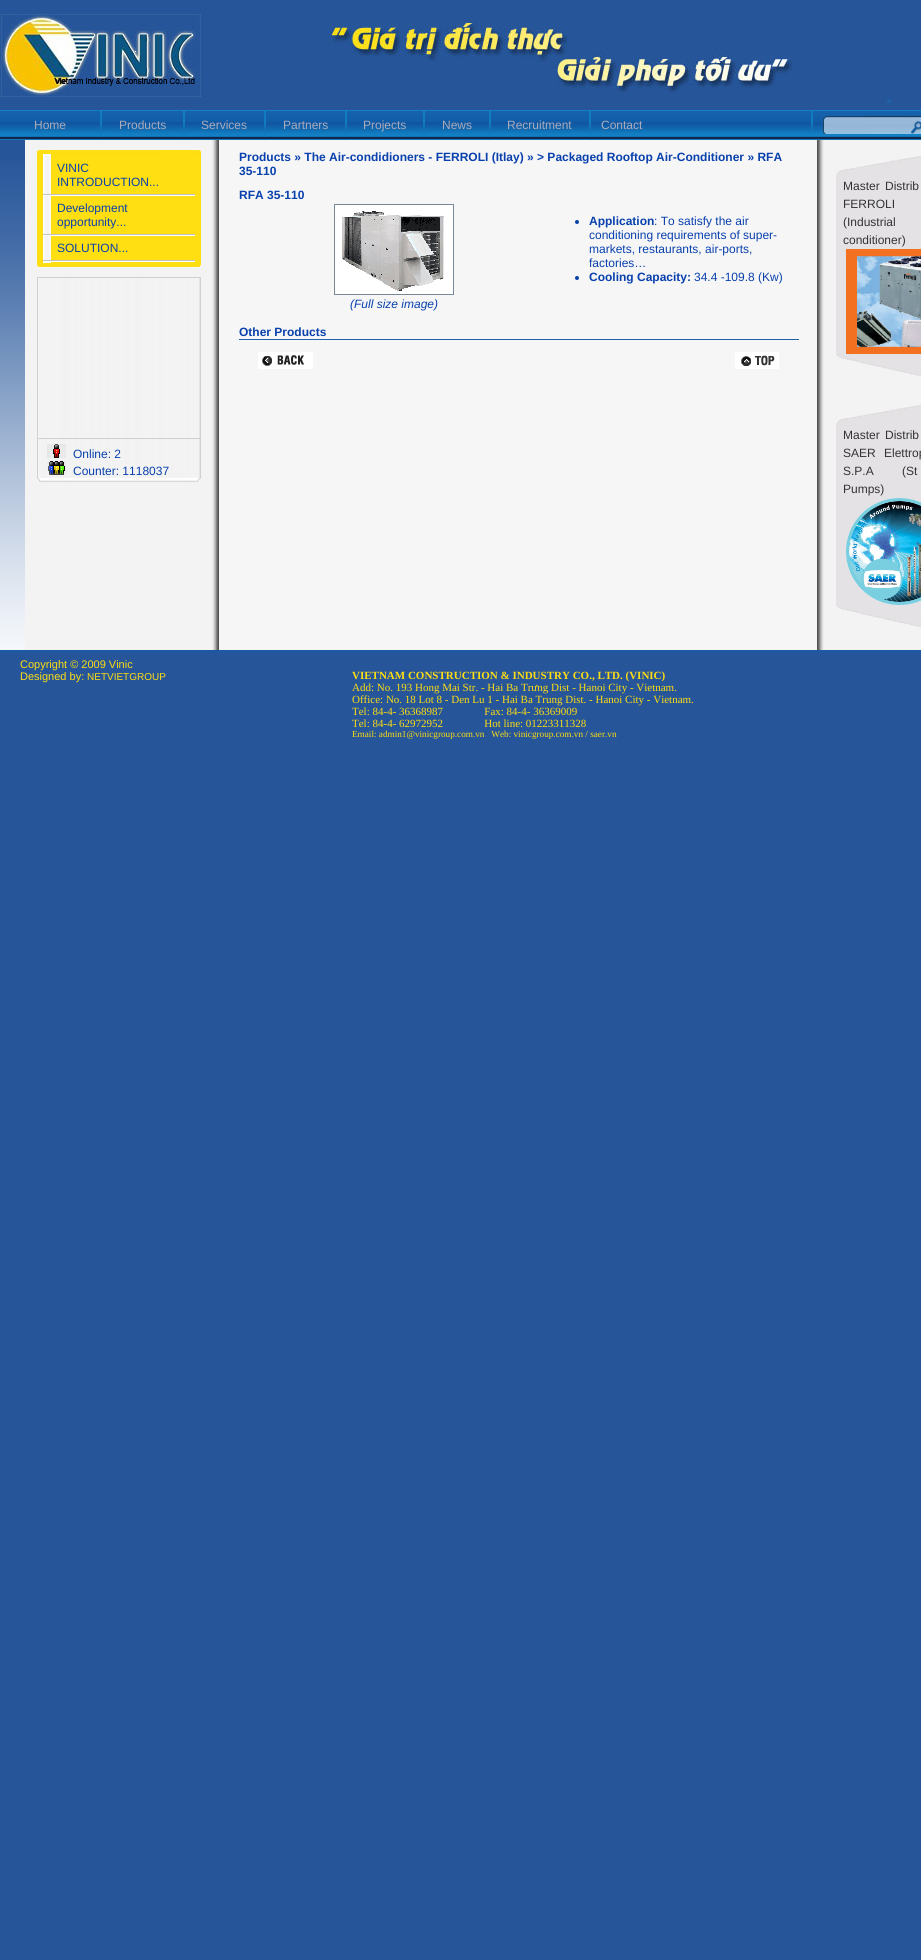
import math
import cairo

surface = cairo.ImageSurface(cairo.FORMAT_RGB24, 921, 1960)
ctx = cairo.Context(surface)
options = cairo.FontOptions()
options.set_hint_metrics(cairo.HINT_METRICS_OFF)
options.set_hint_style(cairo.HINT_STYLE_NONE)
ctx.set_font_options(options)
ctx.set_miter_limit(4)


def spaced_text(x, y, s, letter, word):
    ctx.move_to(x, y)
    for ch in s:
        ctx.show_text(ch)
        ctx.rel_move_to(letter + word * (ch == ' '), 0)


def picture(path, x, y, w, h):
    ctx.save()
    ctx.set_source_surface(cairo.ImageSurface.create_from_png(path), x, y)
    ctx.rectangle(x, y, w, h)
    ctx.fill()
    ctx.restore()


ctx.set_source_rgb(0.149, 0.333, 0.6)
ctx.paint()
picture("img1.png", 1, 14, 200, 83)
picture("img2.png", 325, 19, 467, 74)
ctx.set_source_rgb(0.122, 0.392, 0.663)
ctx.rectangle(887, 100, 4, 3)
ctx.fill()
picture("img3.png", 0, 110, 921, 30)
ctx.select_font_face("Liberation Sans")
ctx.set_font_size(12)
ctx.set_source_rgb(0.675, 0.675, 0.733)
ctx.move_to(34, 129)
ctx.show_text("Home")
picture("img4.png", 100, 111, 2, 29)
ctx.move_to(119, 129)
ctx.show_text("Products")
picture("img4.png", 183, 111, 2, 29)
ctx.move_to(201, 129)
ctx.show_text("Services")
picture("img4.png", 264, 111, 2, 29)
ctx.move_to(283, 129)
ctx.show_text("Partners")
picture("img4.png", 345, 111, 2, 29)
ctx.move_to(363, 129)
ctx.show_text("Projects")
picture("img4.png", 423, 111, 2, 29)
ctx.move_to(442, 129)
ctx.show_text("News")
picture("img4.png", 489, 111, 2, 29)
ctx.move_to(507, 129)
ctx.show_text("Recruitment")
picture("img4.png", 589, 111, 2, 29)
ctx.move_to(601, 129)
ctx.show_text("Contact")
picture("img5.png", 811, 111, 2, 19)
picture("img6.png", 823, 116, 98, 18)
picture("img7.png", 0, 160, 25, 490)
picture("img8.png", 25, 140, 194, 510)
picture("img9.png", 37, 150, 164, 6)
picture("img10.png", 37, 156, 164, 38)
ctx.set_source_rgb(0.035, 0.251, 0.678)
ctx.move_to(57, 172)
ctx.show_text("VINIC")
ctx.move_to(57, 186)
ctx.show_text("INTRODUCTION...")
picture("img11.png", 37, 194, 164, 2)
picture("img10.png", 37, 196, 164, 38)
ctx.move_to(57, 212)
ctx.show_text("Development")
ctx.move_to(57, 226)
ctx.show_text("opportunity...")
picture("img11.png", 37, 234, 164, 2)
picture("img12.png", 37, 236, 164, 24)
ctx.move_to(57, 252)
ctx.show_text("SOLUTION...")
picture("img11.png", 37, 260, 164, 2)
picture("img13.png", 37, 262, 164, 5)
ctx.set_source_rgb(0.816, 0.816, 0.816)
ctx.rectangle(37, 277, 164, 1)
ctx.fill()
picture("img14.png", 37, 278, 164, 5)
picture("img15.png", 37, 283, 164, 150)
picture("img14.png", 37, 433, 164, 5)
ctx.rectangle(37, 438, 164, 1)
ctx.fill()
picture("img16.png", 37, 439, 164, 22)
picture("img17.png", 47, 444, 19, 14)
ctx.set_source_rgb(0.035, 0.251, 0.678)
ctx.move_to(73, 458)
ctx.show_text("Online: 2")
picture("img18.png", 37, 461, 164, 17)
picture("img19.png", 47, 461, 19, 14)
ctx.move_to(73, 475)
ctx.show_text("Counter: 1118037")
picture("img20.png", 37, 478, 164, 4)
ctx.set_source_rgb(0.961, 0.961, 0.961)
ctx.rectangle(219, 140, 598, 510)
ctx.fill()
ctx.select_font_face("Liberation Sans", cairo.FONT_SLANT_NORMAL, cairo.FONT_WEIGHT_BOLD)
ctx.set_source_rgb(0.035, 0.251, 0.678)
ctx.move_to(239, 161)
ctx.show_text("Products » The Air-condidioners - FERROLI (Itlay) » > Packaged Rooftop Air-Conditioner » RFA")
ctx.move_to(239, 175)
ctx.show_text("35-110")
ctx.move_to(239, 199)
ctx.show_text("RFA 35-110")
ctx.new_path()
ctx.arc(577, 222, 2, 0, 2 * math.pi)
ctx.fill()
ctx.move_to(589, 225)
ctx.show_text("Application")
ctx.select_font_face("Liberation Sans")
ctx.move_to(654, 225)
ctx.show_text(": To satisfy the air")
ctx.move_to(589, 239)
ctx.show_text("conditioning requirements of super-")
ctx.move_to(589, 253)
ctx.show_text("markets, restaurants, air-ports,")
ctx.move_to(589, 267)
ctx.show_text("factories…")
ctx.new_path()
ctx.arc(577, 278, 2, 0, 2 * math.pi)
ctx.fill()
ctx.select_font_face("Liberation Sans", cairo.FONT_SLANT_NORMAL, cairo.FONT_WEIGHT_BOLD)
ctx.move_to(589, 281)
ctx.show_text("Cooling Capacity:")
ctx.select_font_face("Liberation Sans")
ctx.move_to(694, 281)
ctx.show_text("34.4 -109.8 (Kw)")
ctx.rectangle(334.5, 204.5, 119, 90)
ctx.set_source_rgb(0.467, 0.533, 0.6)
ctx.set_line_width(1)
ctx.stroke()
picture("img21.png", 335, 205, 118, 89)
ctx.select_font_face("Liberation Sans", cairo.FONT_SLANT_ITALIC)
ctx.set_source_rgb(0.035, 0.251, 0.678)
ctx.move_to(350, 308)
ctx.show_text("(Full size image)")
ctx.select_font_face("Liberation Sans", cairo.FONT_SLANT_NORMAL, cairo.FONT_WEIGHT_BOLD)
ctx.move_to(239, 336)
ctx.show_text("Other Products")
ctx.set_source_rgb(0.122, 0.392, 0.663)
ctx.rectangle(239, 339, 560, 1)
ctx.fill()
picture("img22.png", 258, 352, 55, 17)
picture("img23.png", 735, 352, 44, 17)
picture("img24.png", 817, 140, 104, 510)
picture("img25.png", 836, 156, 85, 21)
ctx.set_source_rgb(0.894, 0.886, 0.898)
ctx.rectangle(836, 177, 85, 72)
ctx.fill()
ctx.select_font_face("Liberation Sans")
ctx.set_source_rgb(0.2, 0.2, 0.2)
spaced_text(843, 190, "Master Distrib", 0, 2)
spaced_text(843, 208, "FERROLI", 0, 26)
spaced_text(843, 226, "(Industrial", 0, 37)
ctx.move_to(843, 244)
ctx.show_text("conditioner)")
ctx.set_source_rgb(0.894, 0.886, 0.898)
ctx.rectangle(836, 249, 10, 105)
ctx.fill()
picture("img26.png", 846, 249, 75, 105)
picture("img27.png", 836, 354, 85, 22)
picture("img25.png", 836, 405, 85, 21)
ctx.rectangle(836, 426, 85, 179)
ctx.fill()
ctx.set_source_rgb(0.2, 0.2, 0.2)
spaced_text(843, 439, "Master Distrib", 0, 2)
spaced_text(843, 457, "SAER Elettrop", 0, 5)
spaced_text(843, 475, "S.P.A (St", 0, 25)
ctx.move_to(843, 493)
ctx.show_text("Pumps)")
picture("img28.png", 846, 498, 75, 107)
picture("img27.png", 836, 605, 85, 22)
ctx.set_source_rgb(0.114, 0.349, 0.631)
ctx.rectangle(0, 650, 921, 3)
ctx.fill()
ctx.set_font_size(11)
ctx.set_source_rgb(1, 0.871, 0.067)
ctx.move_to(20, 668)
ctx.show_text("Copyright © 2009 Vinic")
ctx.move_to(20, 680)
ctx.show_text("Designed by:")
ctx.set_font_size(10)
ctx.move_to(87, 680)
ctx.show_text("NETVIETGROUP")
ctx.select_font_face("Liberation Serif", cairo.FONT_SLANT_NORMAL, cairo.FONT_WEIGHT_BOLD)
ctx.set_font_size(11)
ctx.move_to(352, 679)
ctx.show_text("VIETNAM CONSTRUCTION & INDUSTRY CO., LTD. (VINIC)")
ctx.select_font_face("Liberation Serif")
ctx.move_to(352, 691)
ctx.show_text("Add: No. 193 Hong Mai Str. - Hai Ba Trưng Dist - Hanoi City - Vietnam.")
ctx.move_to(352, 703)
ctx.show_text("Office: No. 18 Lot 8 - Den Lu 1 - Hai Ba Trung Dist. - Hanoi City - Vietnam.")
ctx.move_to(352, 715)
ctx.show_text("Tel: 84-4- 36368987               Fax: 84-4- 36369009")
ctx.move_to(352, 727)
ctx.show_text("Tel: 84-4- 62972952               Hot line: 01223311328")
ctx.set_font_size(9.2)
ctx.move_to(352, 737)
ctx.show_text("Email: admin1@vinicgroup.com.vn   Web: vinicgroup.com.vn / saer.vn")
surface.write_to_png("page.png")
